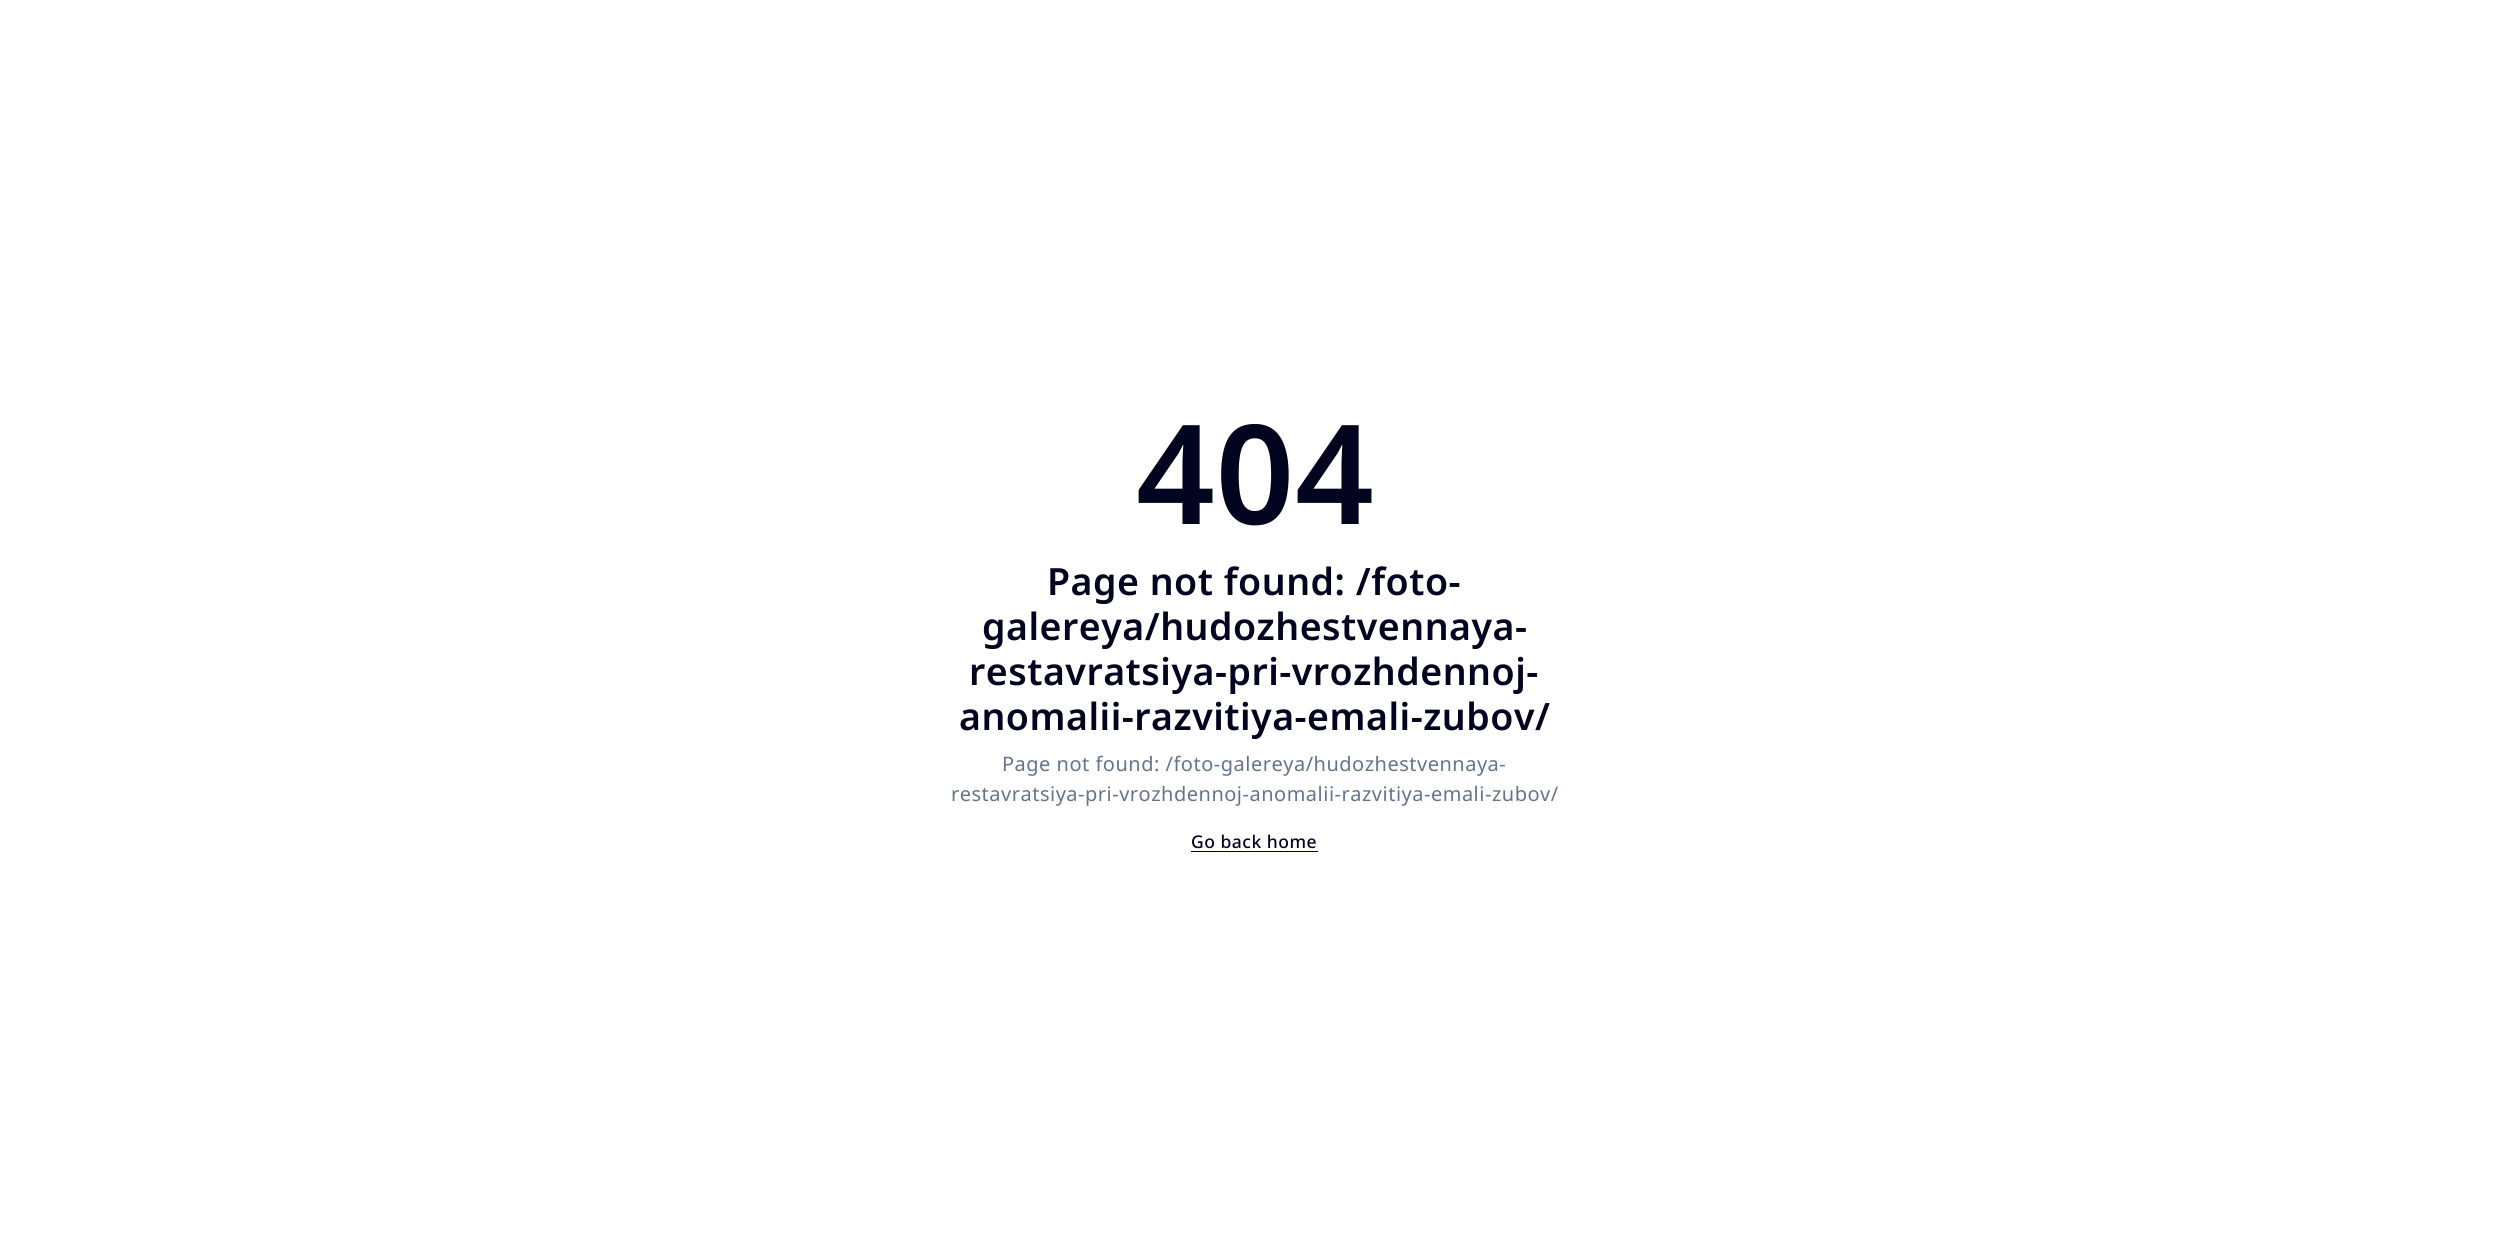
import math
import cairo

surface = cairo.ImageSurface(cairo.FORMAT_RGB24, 2508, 1254)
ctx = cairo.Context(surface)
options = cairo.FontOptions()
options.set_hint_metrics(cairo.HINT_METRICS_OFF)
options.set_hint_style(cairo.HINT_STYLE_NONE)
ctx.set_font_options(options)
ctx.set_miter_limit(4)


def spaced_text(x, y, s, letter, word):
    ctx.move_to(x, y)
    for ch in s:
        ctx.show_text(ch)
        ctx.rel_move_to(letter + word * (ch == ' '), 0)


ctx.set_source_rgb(1, 1, 1)
ctx.paint()
ctx.select_font_face("Noto Sans SemiBold")
ctx.set_font_size(138)
ctx.set_source_rgb(0.008, 0.016, 0.125)
spaced_text(1136, 524, "404", 0.5, 0)
ctx.set_font_size(37.5)
spaced_text(1047, 595, "Page not found: /foto-", 0.5, 0)
spaced_text(982, 640, "galereya/hudozhestvennaya-", 0.5, 0)
spaced_text(969, 685, "restavratsiya-pri-vrozhdennoj-", 0.5, 0)
spaced_text(959, 730, "anomalii-razvitiya-emali-zubov/", 0.5, 0)
ctx.select_font_face("Noto Sans")
ctx.set_font_size(20)
ctx.set_source_rgb(0.392, 0.455, 0.545)
spaced_text(1002, 771, "Page not found: /foto-galereya/hudozhestvennaya-", 0.5, 0)
spaced_text(951, 801, "restavratsiya-pri-vrozhdennoj-anomalii-razvitiya-emali-zubov/", 0.5, 0)
ctx.select_font_face("Noto Sans Medium")
ctx.set_font_size(17.5)
ctx.set_source_rgb(0.008, 0.016, 0.125)
spaced_text(1191, 848, "Go back home", 0.5, 0)
ctx.rectangle(1191, 851, 127, 1)
ctx.fill()
surface.write_to_png("page.png")
